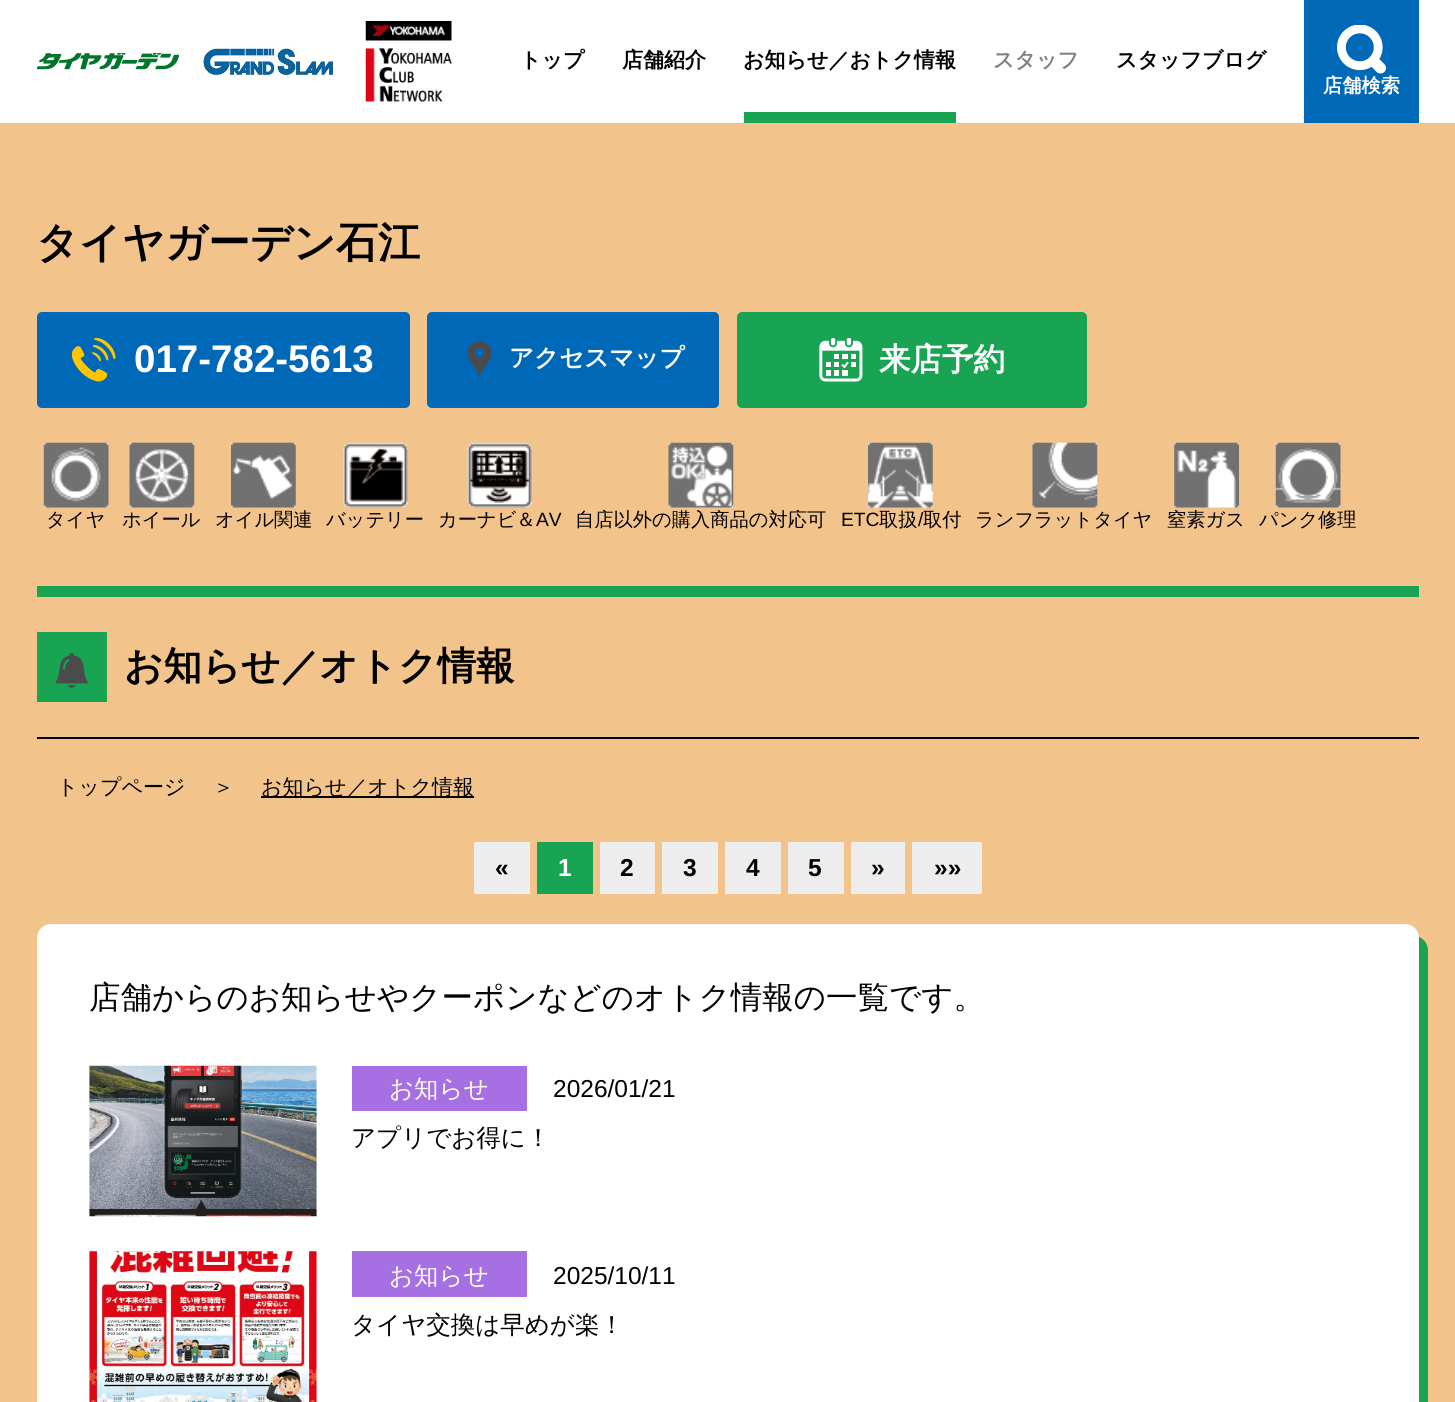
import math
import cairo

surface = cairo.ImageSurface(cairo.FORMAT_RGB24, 1455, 1402)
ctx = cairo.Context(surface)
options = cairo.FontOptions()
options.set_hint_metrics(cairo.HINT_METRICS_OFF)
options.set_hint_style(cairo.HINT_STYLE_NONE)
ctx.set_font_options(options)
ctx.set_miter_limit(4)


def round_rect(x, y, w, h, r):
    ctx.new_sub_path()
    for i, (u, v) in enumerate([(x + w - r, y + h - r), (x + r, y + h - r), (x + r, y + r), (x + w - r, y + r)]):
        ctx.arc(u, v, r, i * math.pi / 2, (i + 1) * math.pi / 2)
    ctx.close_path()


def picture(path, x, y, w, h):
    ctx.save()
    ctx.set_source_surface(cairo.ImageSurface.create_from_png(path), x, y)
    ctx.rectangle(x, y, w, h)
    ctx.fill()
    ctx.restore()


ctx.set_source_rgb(0.949, 0.765, 0.545)
ctx.paint()
ctx.set_source_rgb(1, 1, 1)
ctx.rectangle(0, 0, 1455, 123)
ctx.fill()
picture("img1.png", 37, 53, 142, 17)
picture("img2.png", 196, 42, 143, 35)
picture("img3.png", 365, 21, 87, 81)
ctx.select_font_face("WenQuanYi Zen Hei", cairo.FONT_SLANT_NORMAL, cairo.FONT_WEIGHT_BOLD)
ctx.set_font_size(21)
ctx.set_source_rgb(0, 0, 0)
ctx.move_to(520, 67)
ctx.show_text("トップ")
ctx.move_to(622, 67)
ctx.show_text("店舗紹介")
ctx.move_to(743, 67)
ctx.show_text("お知らせ／おトク情報")
ctx.set_source_rgb(0.094, 0.643, 0.322)
ctx.rectangle(744, 112, 212, 11)
ctx.fill()
ctx.set_source_rgb(0.502, 0.502, 0.502)
ctx.move_to(993, 67)
ctx.show_text("スタッフ")
ctx.set_source_rgb(0, 0, 0)
ctx.move_to(1116, 67)
ctx.show_text("スタッフブログ")
ctx.set_source_rgb(0, 0.412, 0.718)
ctx.rectangle(1304, 0, 115, 123)
ctx.fill()
picture("img4.png", 1337, 25, 49, 49)
ctx.set_font_size(19.25)
ctx.set_source_rgb(1, 1, 1)
ctx.move_to(1323, 92)
ctx.show_text("店舗検索")
ctx.set_font_size(42)
ctx.set_source_rgb(0, 0, 0)
ctx.move_to(36, 257)
ctx.show_text("タイヤガーデン石江")
ctx.set_source_rgb(0, 0.412, 0.718)
round_rect(37, 312, 373, 96, 5)
ctx.fill()
picture("img5.png", 72, 338, 44, 44)
ctx.select_font_face("Liberation Sans", cairo.FONT_SLANT_NORMAL, cairo.FONT_WEIGHT_BOLD)
ctx.set_font_size(38.5)
ctx.set_source_rgb(1, 1, 1)
ctx.move_to(134, 372)
ctx.show_text("017-782-5613")
ctx.set_source_rgb(0, 0.412, 0.718)
round_rect(427, 312, 292, 96, 5)
ctx.fill()
picture("img6.png", 467, 341, 25, 35)
ctx.select_font_face("WenQuanYi Zen Hei", cairo.FONT_SLANT_NORMAL, cairo.FONT_WEIGHT_BOLD)
ctx.set_font_size(24.5)
ctx.set_source_rgb(1, 1, 1)
ctx.move_to(509, 366)
ctx.show_text("アクセスマップ")
ctx.set_source_rgb(0.094, 0.643, 0.322)
round_rect(737, 312, 350, 96, 5)
ctx.fill()
picture("img7.png", 819, 338, 44, 44)
ctx.set_font_size(31.5)
ctx.set_source_rgb(1, 1, 1)
ctx.move_to(879, 370)
ctx.show_text("来店予約")
picture("img8.png", 43, 442, 66, 66)
ctx.select_font_face("WenQuanYi Zen Hei Medium")
ctx.set_font_size(19.25)
ctx.set_source_rgb(0, 0, 0)
ctx.move_to(46, 526)
ctx.show_text("タイヤ")
picture("img9.png", 129, 442, 66, 66)
ctx.move_to(122, 526)
ctx.show_text("ホイール")
picture("img10.png", 231, 442, 65, 66)
ctx.move_to(215, 526)
ctx.show_text("オイル関連")
picture("img11.png", 343, 442, 65, 66)
ctx.move_to(326, 526)
ctx.show_text("バッテリー")
picture("img12.png", 467, 442, 65, 66)
ctx.move_to(438, 526)
ctx.show_text("カーナビ＆")
ctx.select_font_face("Liberation Sans")
ctx.move_to(536, 526)
ctx.show_text("AV")
picture("img13.png", 668, 442, 66, 66)
ctx.select_font_face("WenQuanYi Zen Hei Medium")
ctx.move_to(575, 526)
ctx.show_text("自店以外の購入商品の対応可")
picture("img14.png", 868, 442, 65, 66)
ctx.select_font_face("Liberation Sans")
ctx.move_to(841, 526)
ctx.show_text("ETC")
ctx.select_font_face("WenQuanYi Zen Hei Medium")
ctx.move_to(879, 526)
ctx.show_text("取扱")
ctx.select_font_face("Liberation Sans")
ctx.move_to(918, 526)
ctx.show_text("/")
ctx.select_font_face("WenQuanYi Zen Hei Medium")
ctx.move_to(923, 526)
ctx.show_text("取付")
picture("img15.png", 1032, 442, 66, 66)
ctx.move_to(975, 526)
ctx.show_text("ランフラットタイヤ")
picture("img16.png", 1174, 442, 65, 66)
ctx.move_to(1167, 526)
ctx.show_text("窒素ガス")
picture("img17.png", 1275, 442, 66, 66)
ctx.move_to(1259, 526)
ctx.show_text("パンク修理")
ctx.set_source_rgb(0.094, 0.643, 0.322)
ctx.rectangle(37, 586, 1382, 11)
ctx.fill()
ctx.set_source_rgb(0, 0, 0)
ctx.rectangle(37, 737, 1382, 2)
ctx.fill()
ctx.set_source_rgb(0.094, 0.643, 0.322)
ctx.rectangle(37, 632, 70, 70)
ctx.fill()
picture("img18.png", 55, 653, 33, 35)
ctx.select_font_face("WenQuanYi Zen Hei", cairo.FONT_SLANT_NORMAL, cairo.FONT_WEIGHT_BOLD)
ctx.set_font_size(38.5)
ctx.set_source_rgb(0, 0, 0)
ctx.move_to(124, 679)
ctx.show_text("お知らせ／オトク情報")
ctx.select_font_face("WenQuanYi Zen Hei Medium")
ctx.set_font_size(21)
ctx.move_to(57, 794)
ctx.show_text("トップページ")
ctx.move_to(213, 794)
ctx.show_text("＞")
ctx.rectangle(261, 796, 213, 2)
ctx.fill()
ctx.move_to(261, 794)
ctx.show_text("お知らせ／オトク情報")
ctx.set_source_rgb(0.929, 0.929, 0.929)
ctx.rectangle(474, 842, 56, 52)
ctx.fill()
ctx.select_font_face("Liberation Sans", cairo.FONT_SLANT_NORMAL, cairo.FONT_WEIGHT_BOLD)
ctx.set_font_size(24.5)
ctx.set_source_rgb(0, 0, 0)
ctx.move_to(495, 876)
ctx.show_text("«")
ctx.set_source_rgb(0.094, 0.643, 0.322)
ctx.rectangle(537, 842, 56, 52)
ctx.fill()
ctx.set_source_rgb(1, 1, 1)
ctx.move_to(558, 876)
ctx.show_text("1")
ctx.set_source_rgb(0.929, 0.929, 0.929)
ctx.rectangle(600, 842, 55, 52)
ctx.fill()
ctx.set_source_rgb(0, 0, 0)
ctx.move_to(620, 876)
ctx.show_text("2")
ctx.set_source_rgb(0.929, 0.929, 0.929)
ctx.rectangle(662, 842, 56, 52)
ctx.fill()
ctx.set_source_rgb(0, 0, 0)
ctx.move_to(683, 876)
ctx.show_text("3")
ctx.set_source_rgb(0.929, 0.929, 0.929)
ctx.rectangle(725, 842, 56, 52)
ctx.fill()
ctx.set_source_rgb(0, 0, 0)
ctx.move_to(746, 876)
ctx.show_text("4")
ctx.set_source_rgb(0.929, 0.929, 0.929)
ctx.rectangle(788, 842, 56, 52)
ctx.fill()
ctx.set_source_rgb(0, 0, 0)
ctx.move_to(808, 876)
ctx.show_text("5")
ctx.set_source_rgb(0.929, 0.929, 0.929)
ctx.rectangle(851, 842, 54, 52)
ctx.fill()
ctx.set_source_rgb(0, 0, 0)
ctx.move_to(871, 876)
ctx.show_text("»")
ctx.set_source_rgb(0.929, 0.929, 0.929)
ctx.rectangle(912, 842, 70, 52)
ctx.fill()
ctx.set_source_rgb(0, 0, 0)
ctx.move_to(934, 876)
ctx.show_text("»»")
ctx.set_source_rgb(0.094, 0.643, 0.322)
ctx.new_path()
ctx.move_to(46, 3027)
ctx.curve_to(46, 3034, 52, 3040, 60, 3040)
ctx.line_to(1414, 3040)
ctx.curve_to(1422, 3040, 1428, 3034, 1428, 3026)
ctx.line_to(1428, 950)
ctx.curve_to(1428, 944, 1424, 939, 1419, 937)
ctx.line_to(1419, 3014)
ctx.curve_to(1419, 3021, 1413, 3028, 1405, 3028)
ctx.line_to(51, 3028)
ctx.close_path()
ctx.fill()
ctx.set_source_rgb(1, 1, 1)
round_rect(37, 924, 1382, 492, 14)
ctx.fill()
ctx.select_font_face("WenQuanYi Zen Hei Medium")
ctx.set_font_size(31.5)
ctx.set_source_rgb(0, 0, 0)
ctx.move_to(89, 1008)
ctx.show_text("店舗からのお知らせやクーポンなどのオトク情報の一覧です。")
picture("img19.png", 89, 1065, 228, 152)
ctx.set_source_rgb(0.651, 0.439, 0.89)
ctx.rectangle(352, 1066, 175, 45)
ctx.fill()
ctx.set_font_size(24.5)
ctx.set_source_rgb(1, 1, 1)
ctx.move_to(389, 1097)
ctx.show_text("お知らせ")
ctx.select_font_face("Liberation Sans")
ctx.set_source_rgb(0, 0, 0)
ctx.move_to(553, 1097)
ctx.show_text("2026/01/21")
ctx.select_font_face("WenQuanYi Zen Hei Medium")
ctx.move_to(351, 1146)
ctx.show_text("アプリでお得に！")
picture("img20.png", 89, 1251, 228, 151)
ctx.set_source_rgb(0.651, 0.439, 0.89)
ctx.rectangle(352, 1251, 175, 46)
ctx.fill()
ctx.set_source_rgb(1, 1, 1)
ctx.move_to(389, 1284)
ctx.show_text("お知らせ")
ctx.select_font_face("Liberation Sans")
ctx.set_source_rgb(0, 0, 0)
ctx.move_to(553, 1284)
ctx.show_text("2025/10/11")
ctx.select_font_face("WenQuanYi Zen Hei Medium")
ctx.move_to(351, 1333)
ctx.show_text("タイヤ交換は早めが楽！")
surface.write_to_png("page.png")
